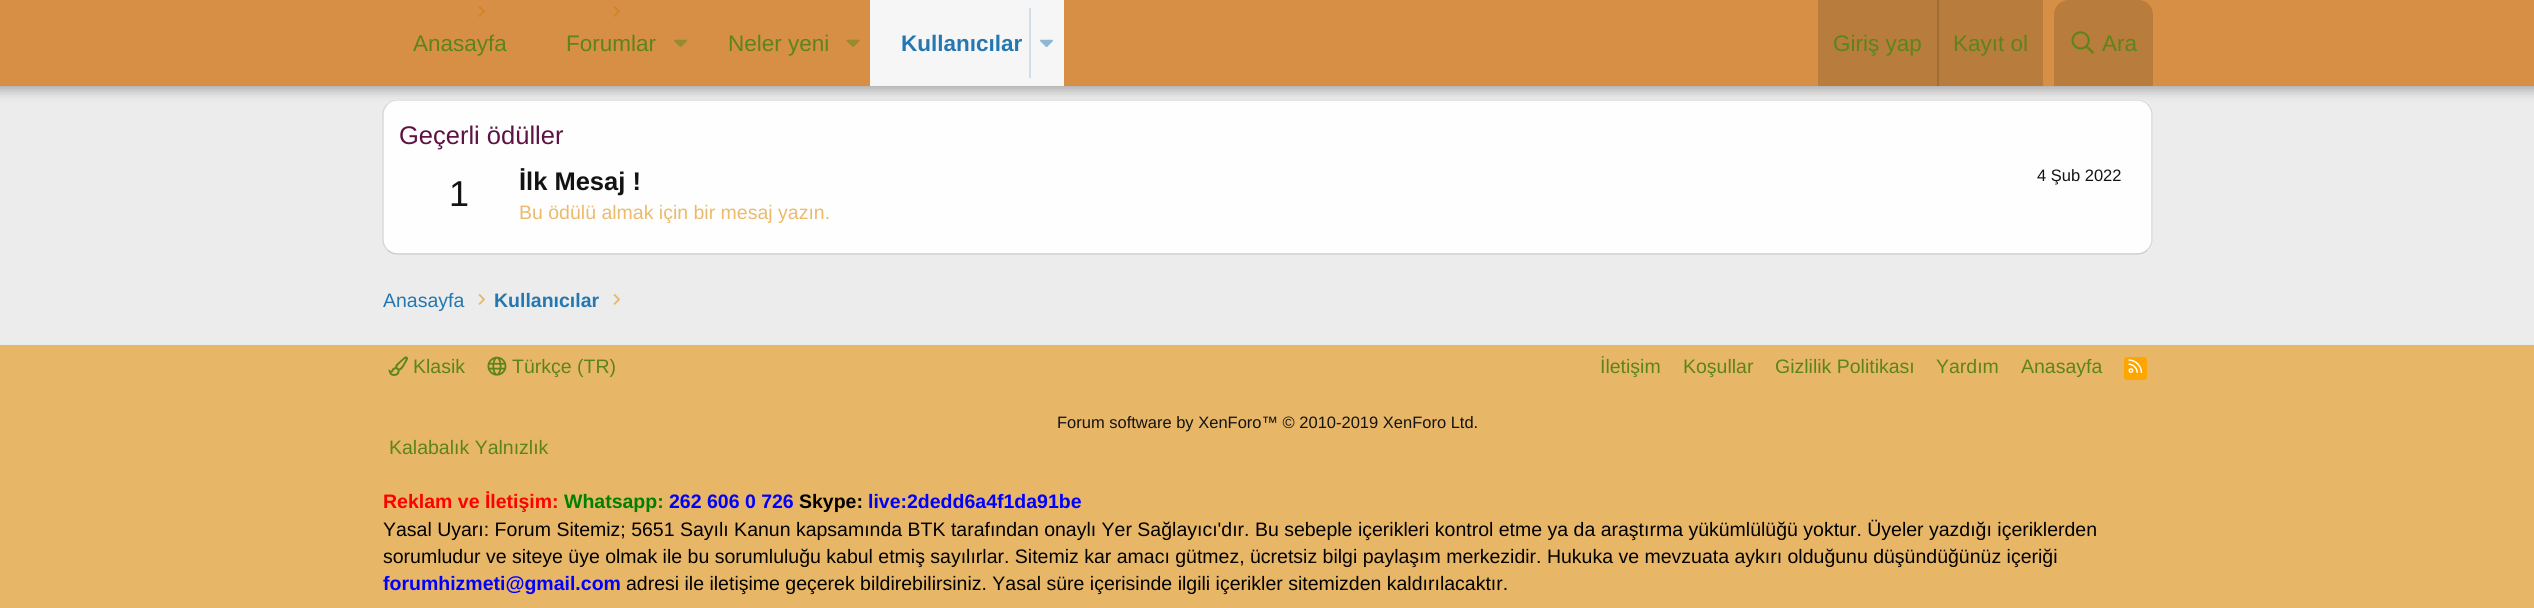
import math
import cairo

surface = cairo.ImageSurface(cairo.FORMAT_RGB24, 2534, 608)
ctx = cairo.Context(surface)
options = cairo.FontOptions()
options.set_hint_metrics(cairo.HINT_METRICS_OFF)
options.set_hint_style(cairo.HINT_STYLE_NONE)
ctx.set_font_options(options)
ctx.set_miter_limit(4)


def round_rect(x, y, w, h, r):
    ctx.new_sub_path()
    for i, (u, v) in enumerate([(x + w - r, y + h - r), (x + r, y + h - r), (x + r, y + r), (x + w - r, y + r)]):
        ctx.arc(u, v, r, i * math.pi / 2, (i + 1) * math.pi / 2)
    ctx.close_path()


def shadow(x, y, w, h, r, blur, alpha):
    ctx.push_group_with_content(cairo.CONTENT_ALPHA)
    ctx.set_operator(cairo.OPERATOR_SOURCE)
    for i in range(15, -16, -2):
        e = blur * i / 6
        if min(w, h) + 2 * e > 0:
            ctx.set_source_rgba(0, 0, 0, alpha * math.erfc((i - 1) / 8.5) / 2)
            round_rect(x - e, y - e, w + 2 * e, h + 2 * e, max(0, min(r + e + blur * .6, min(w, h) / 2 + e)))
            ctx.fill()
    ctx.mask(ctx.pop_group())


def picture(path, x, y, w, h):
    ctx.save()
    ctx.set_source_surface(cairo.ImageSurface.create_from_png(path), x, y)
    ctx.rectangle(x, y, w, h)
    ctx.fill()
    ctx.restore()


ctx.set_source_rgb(0.925, 0.925, 0.925)
ctx.paint()
picture("img5.png", 478, 6, 7, 11)
picture("img5.png", 613, 6, 7, 11)
ctx.set_source_rgb(0.996, 0.996, 0.996)
round_rect(383, 99, 1770, 156, 15)
ctx.fill()
ctx.new_path()
ctx.move_to(387.5, 104)
ctx.curve_to(390, 101.5, 393.5, 100, 397.5, 100)
ctx.line_to(2137.5, 100)
ctx.curve_to(2141.5, 100, 2145, 101.5, 2147.5, 104)
ctx.set_source_rgb(0.875, 0.875, 0.875)
ctx.set_line_width(1.5)
ctx.stroke()
ctx.new_path()
ctx.move_to(2147.5, 104)
ctx.curve_to(2150, 106.5, 2152, 110, 2152, 114)
ctx.line_to(2152, 240)
ctx.curve_to(2152, 244, 2150, 247.5, 2147.5, 250)
ctx.set_source_rgb(0.847, 0.847, 0.847)
ctx.stroke()
ctx.new_path()
ctx.move_to(2147.5, 250)
ctx.curve_to(2145, 252.5, 2141.5, 254, 2137.5, 254)
ctx.line_to(397.5, 254)
ctx.curve_to(393.5, 254, 390, 252.5, 387.5, 250)
ctx.set_source_rgb(0.796, 0.796, 0.796)
ctx.stroke()
ctx.new_path()
ctx.move_to(387.5, 250)
ctx.curve_to(385, 247.5, 383, 244, 383, 240)
ctx.line_to(383, 114)
ctx.curve_to(383, 110, 385, 106.5, 387.5, 104)
ctx.set_source_rgb(0.847, 0.847, 0.847)
ctx.stroke()
ctx.save()
ctx.set_fill_rule(cairo.FILL_RULE_EVEN_ODD)
ctx.new_path()
ctx.move_to(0, 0)
ctx.line_to(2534, 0)
ctx.line_to(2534, 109)
ctx.line_to(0, 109)
ctx.close_path()
ctx.move_to(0, 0)
ctx.line_to(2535, 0)
ctx.line_to(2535, 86)
ctx.line_to(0, 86)
ctx.close_path()
ctx.clip()
ctx.set_source_rgb(0, 0, 0)
shadow(-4, -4, 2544, 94, 0, 6, 0.3)
ctx.restore()
ctx.set_source_rgba(0.812, 0.455, 0.075, 0.77)
ctx.rectangle(0, 0, 2534, 86)
ctx.fill()
ctx.select_font_face("Liberation Sans")
ctx.set_font_size(22.5)
ctx.set_source_rgb(0.361, 0.518, 0.106)
ctx.move_to(413, 51)
ctx.show_text("Anasayfa")
ctx.move_to(566, 51)
ctx.show_text("Forumlar")
picture("img1.png", 674, 39, 13, 9)
ctx.move_to(728, 51)
ctx.show_text("Neler yeni")
picture("img2.png", 846, 39, 14, 8)
ctx.set_source_rgb(0.961, 0.961, 0.961)
ctx.rectangle(870, 0, 194, 86)
ctx.fill()
ctx.select_font_face("Liberation Sans", cairo.FONT_SLANT_NORMAL, cairo.FONT_WEIGHT_BOLD)
ctx.set_source_rgb(0.145, 0.467, 0.694)
ctx.move_to(901, 51)
ctx.show_text("Kullanıcılar")
ctx.set_source_rgb(0.82, 0.875, 0.914)
ctx.rectangle(1029, 8, 2, 70)
ctx.fill()
picture("img3.png", 1040, 39, 13, 9)
ctx.set_source_rgba(0.078, 0.078, 0.078, 0.15)
ctx.rectangle(1818, 0, 225, 86)
ctx.fill()
ctx.select_font_face("Liberation Sans")
ctx.set_source_rgb(0.361, 0.518, 0.106)
ctx.move_to(1833, 51)
ctx.show_text("Giriş yap")
ctx.set_source_rgba(0.078, 0.078, 0.078, 0.15)
ctx.rectangle(1937, 0, 2, 86)
ctx.fill()
ctx.set_source_rgb(0.361, 0.518, 0.106)
ctx.move_to(1953, 51)
ctx.show_text("Kayıt ol")
ctx.set_source_rgba(0.078, 0.078, 0.078, 0.15)
ctx.new_path()
ctx.move_to(2069, 0)
ctx.line_to(2138, 0)
ctx.curve_to(2146.5, 0, 2153, 6.5, 2153, 15)
ctx.line_to(2153, 86)
ctx.line_to(2054, 86)
ctx.line_to(2054, 15)
ctx.curve_to(2054, 6.5, 2060.5, 0, 2069, 0)
ctx.close_path()
ctx.fill()
picture("img4.png", 2071, 31, 23, 23)
ctx.set_source_rgb(0.361, 0.518, 0.106)
ctx.move_to(2102, 51)
ctx.show_text("Ara")
ctx.set_font_size(25.5)
ctx.set_source_rgb(0.365, 0.071, 0.263)
ctx.move_to(399, 144)
ctx.show_text("Geçerli ödüller")
ctx.set_font_size(36)
ctx.set_source_rgb(0.078, 0.078, 0.078)
ctx.move_to(449, 206)
ctx.show_text("1")
ctx.select_font_face("Liberation Sans", cairo.FONT_SLANT_NORMAL, cairo.FONT_WEIGHT_BOLD)
ctx.set_font_size(25.5)
ctx.move_to(519, 190)
ctx.show_text("İlk Mesaj !")
ctx.select_font_face("Liberation Sans")
ctx.set_font_size(16.5)
ctx.move_to(2037, 181)
ctx.show_text("4 Şub 2022")
ctx.set_font_size(19.5)
ctx.set_source_rgb(0.922, 0.729, 0.42)
ctx.move_to(519, 219)
ctx.show_text("Bu ödülü almak için bir mesaj yazın.")
ctx.set_source_rgb(0.145, 0.467, 0.694)
ctx.move_to(383, 307)
ctx.show_text("Anasayfa")
picture("img5.png", 478, 294, 7, 11)
ctx.select_font_face("Liberation Sans", cairo.FONT_SLANT_NORMAL, cairo.FONT_WEIGHT_BOLD)
ctx.move_to(494, 307)
ctx.show_text("Kullanıcılar")
picture("img5.png", 613, 294, 7, 11)
ctx.set_source_rgb(0.906, 0.714, 0.404)
ctx.rectangle(0, 345, 2534, 263)
ctx.fill()
picture("img6.png", 388, 356, 20, 20)
ctx.select_font_face("Liberation Sans")
ctx.set_source_rgb(0.361, 0.518, 0.106)
ctx.move_to(413, 373)
ctx.show_text("Klasik")
picture("img7.png", 487, 356, 20, 20)
ctx.move_to(512, 373)
ctx.show_text("Türkçe (TR)")
ctx.move_to(1600, 373)
ctx.show_text("İletişim")
ctx.move_to(1683, 373)
ctx.show_text("Koşullar")
ctx.move_to(1775, 373)
ctx.show_text("Gizlilik Politikası")
ctx.move_to(1936, 373)
ctx.show_text("Yardım")
ctx.move_to(2021, 373)
ctx.show_text("Anasayfa")
ctx.set_source_rgb(1, 0.647, 0)
round_rect(2124, 357, 23, 23, 3)
ctx.fill()
picture("img8.png", 2128, 359, 15, 14)
ctx.set_font_size(16.5)
ctx.set_source_rgb(0.078, 0.078, 0.078)
ctx.move_to(1057, 428)
ctx.show_text("Forum software by XenForo™ © 2010-2019 XenForo Ltd.")
ctx.set_font_size(19.5)
ctx.set_source_rgb(0.361, 0.518, 0.106)
ctx.move_to(389, 454)
ctx.show_text("Kalabalık Yalnızlık")
ctx.select_font_face("Liberation Sans", cairo.FONT_SLANT_NORMAL, cairo.FONT_WEIGHT_BOLD)
ctx.set_source_rgb(1, 0, 0)
ctx.move_to(383, 508)
ctx.show_text("Reklam ve İletişim:")
ctx.set_source_rgb(0, 0.502, 0)
ctx.move_to(564, 508)
ctx.show_text("Whatsapp:")
ctx.set_source_rgb(0, 0, 1)
ctx.move_to(669, 508)
ctx.show_text("262 606 0 726")
ctx.set_source_rgb(0, 0, 0)
ctx.move_to(799, 508)
ctx.show_text("Skype:")
ctx.set_source_rgb(0, 0, 1)
ctx.move_to(868, 508)
ctx.show_text("live:2dedd6a4f1da91be")
ctx.select_font_face("Liberation Sans")
ctx.set_source_rgb(0, 0, 0)
ctx.move_to(383, 536)
ctx.show_text("Yasal Uyarı: Forum Sitemiz; 5651 Sayılı Kanun kapsamında BTK tarafından onaylı Yer Sağlayıcı'dır. Bu sebeple içerikleri kontrol etme ya da araştırma yükümlülüğü yoktur. Üyeler yazdığı içeriklerden")
ctx.move_to(383, 563)
ctx.show_text("sorumludur ve siteye üye olmak ile bu sorumluluğu kabul etmiş sayılırlar. Sitemiz kar amacı gütmez, ücretsiz bilgi paylaşım merkezidir. Hukuka ve mevzuata aykırı olduğunu düşündüğünüz içeriği")
ctx.select_font_face("Liberation Sans", cairo.FONT_SLANT_NORMAL, cairo.FONT_WEIGHT_BOLD)
ctx.set_source_rgb(0, 0, 1)
ctx.move_to(383, 590)
ctx.show_text("forumhizmeti@gmail.com")
ctx.select_font_face("Liberation Sans")
ctx.set_source_rgb(0, 0, 0)
ctx.move_to(626, 590)
ctx.show_text("adresi ile iletişime geçerek bildirebilirsiniz. Yasal süre içerisinde ilgili içerikler sitemizden kaldırılacaktır.")
surface.write_to_png("page.png")
